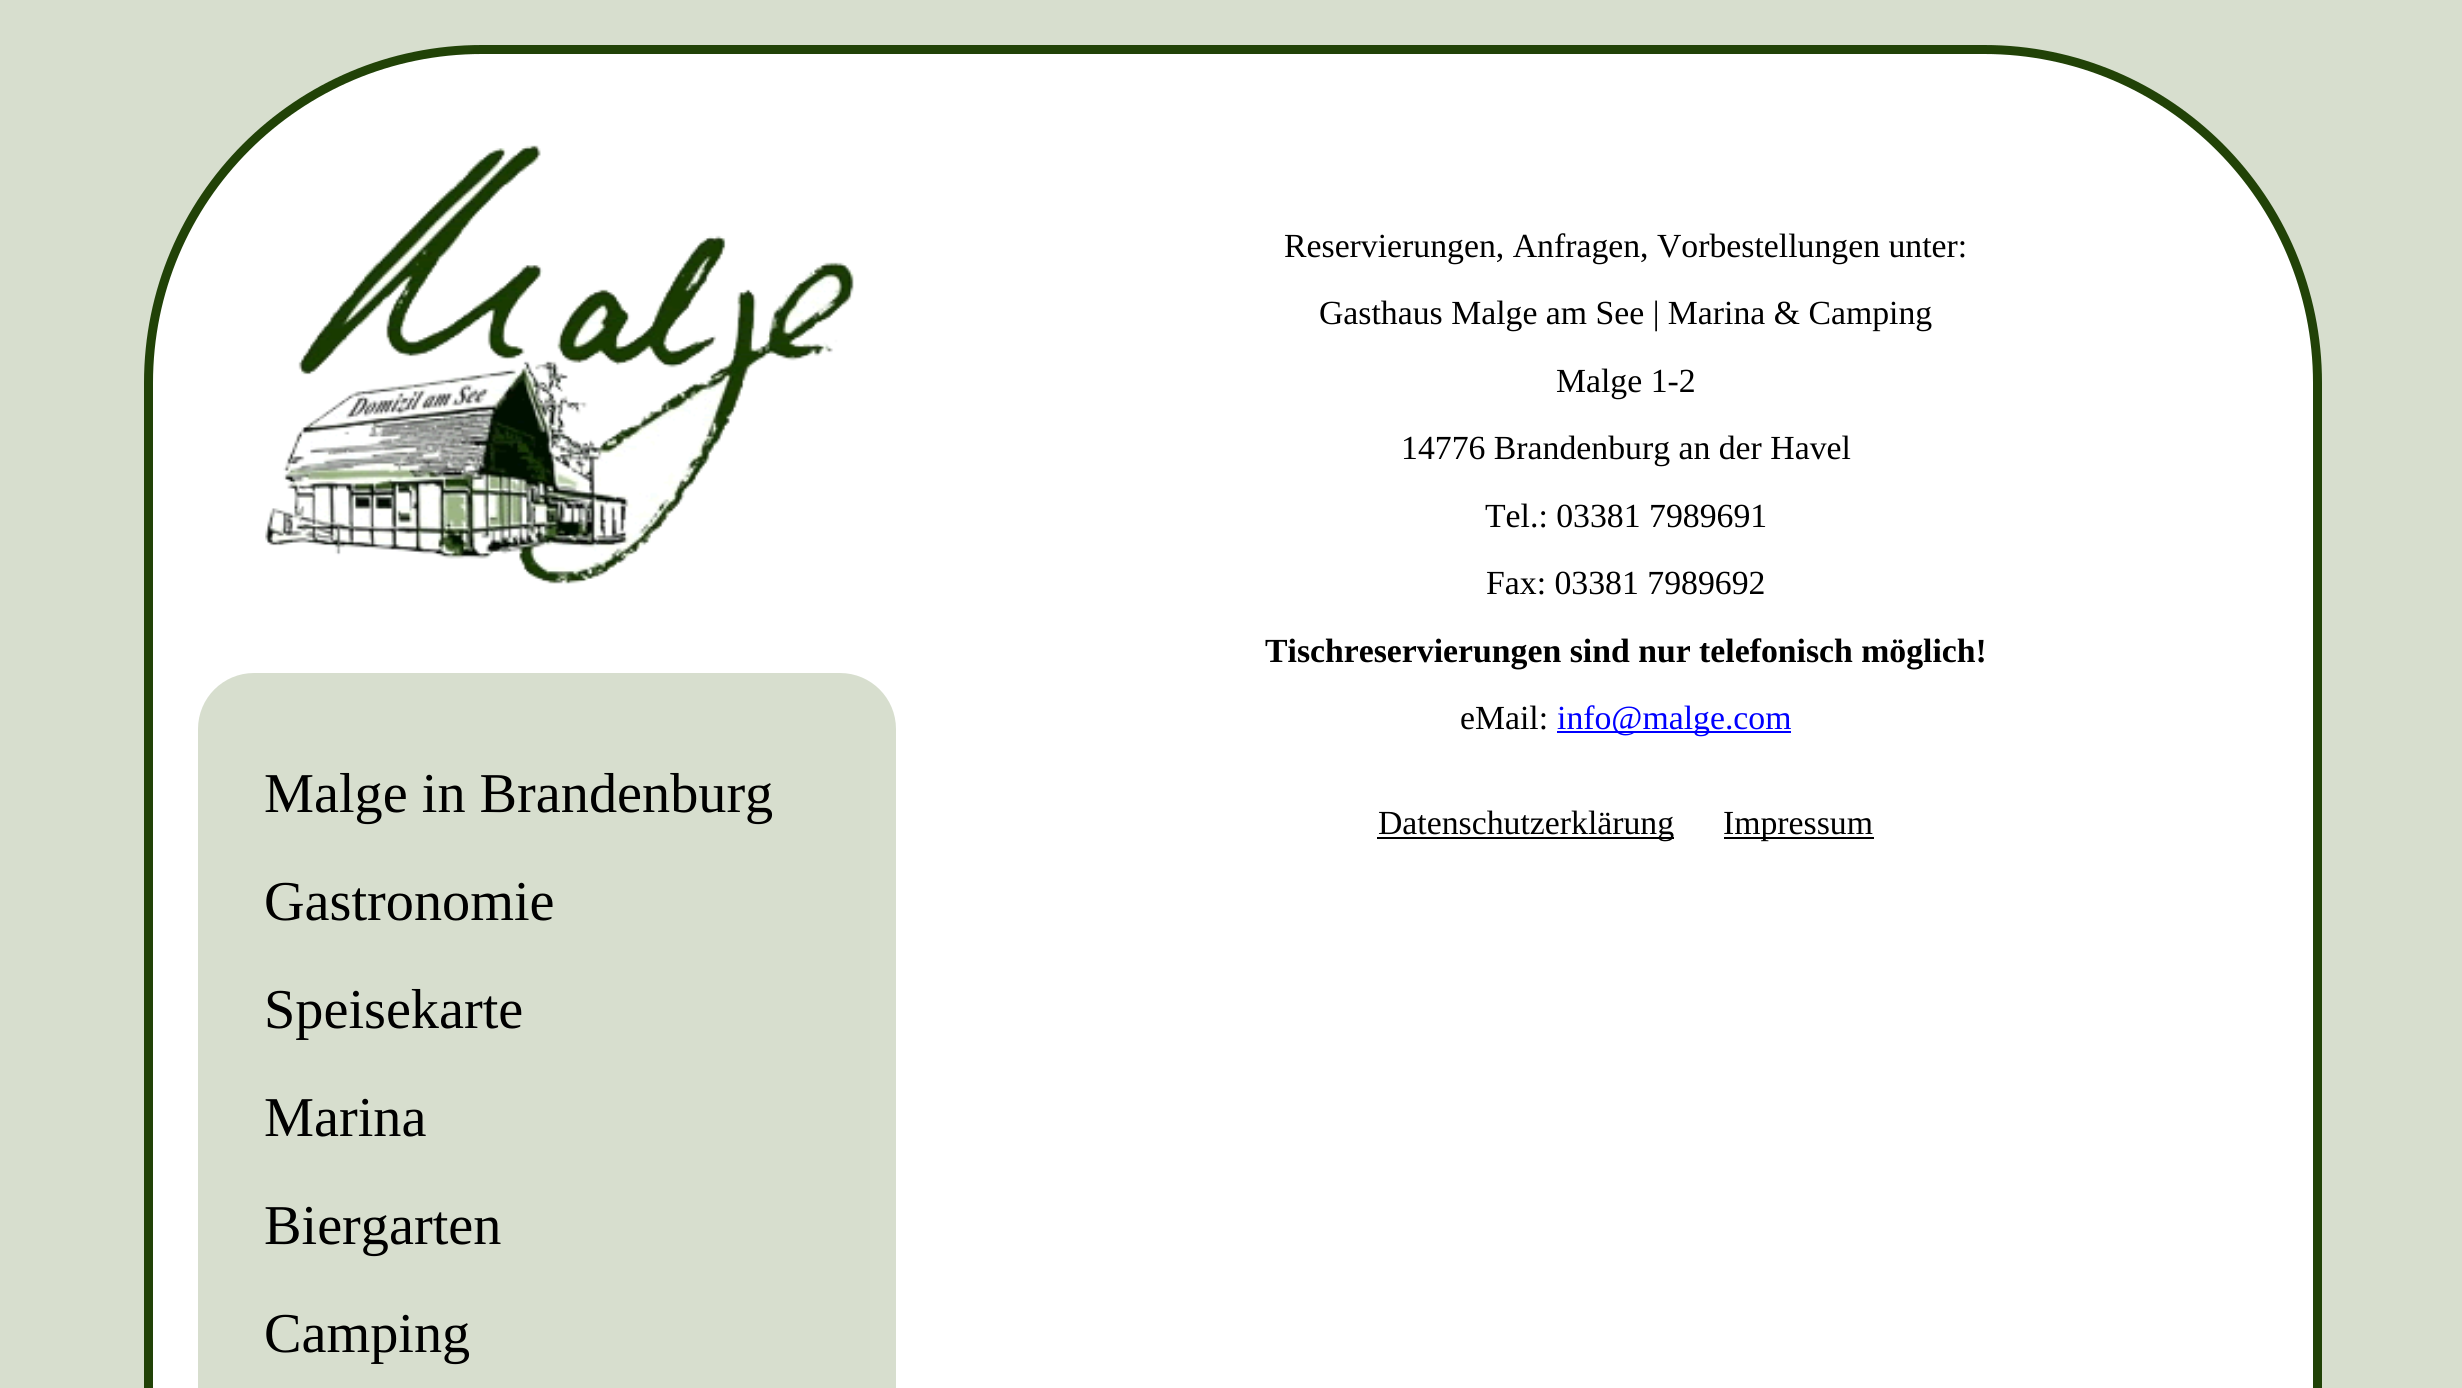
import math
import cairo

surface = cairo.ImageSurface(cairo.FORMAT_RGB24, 2462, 1388)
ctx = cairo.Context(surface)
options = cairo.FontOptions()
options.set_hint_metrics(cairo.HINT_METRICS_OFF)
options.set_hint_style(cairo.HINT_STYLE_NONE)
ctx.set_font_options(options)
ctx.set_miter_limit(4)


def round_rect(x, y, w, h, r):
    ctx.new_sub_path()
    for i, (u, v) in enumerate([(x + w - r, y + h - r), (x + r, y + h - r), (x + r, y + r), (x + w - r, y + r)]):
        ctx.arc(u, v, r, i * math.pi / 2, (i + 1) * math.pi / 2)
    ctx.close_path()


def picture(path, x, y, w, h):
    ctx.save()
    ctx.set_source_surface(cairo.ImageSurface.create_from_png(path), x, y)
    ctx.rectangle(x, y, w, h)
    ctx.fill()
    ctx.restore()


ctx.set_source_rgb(0.843, 0.871, 0.808)
ctx.paint()
ctx.set_source_rgb(1, 1, 1)
round_rect(148.5, 49.5, 2169, 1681, 333.5)
ctx.fill_preserve()
ctx.set_source_rgb(0.129, 0.259, 0.031)
ctx.set_line_width(9)
ctx.stroke()
ctx.select_font_face("Liberation Serif")
ctx.set_font_size(33.75)
ctx.set_source_rgb(0, 0, 0)
ctx.move_to(1284, 257)
ctx.show_text("Reservierungen, Anfragen, Vorbestellungen unter:")
ctx.move_to(1319, 324)
ctx.show_text("Gasthaus Malge am See | Marina & Camping")
ctx.move_to(1556, 392)
ctx.show_text("Malge 1-2")
ctx.move_to(1401, 459)
ctx.show_text("14776 Brandenburg an der Havel")
ctx.move_to(1485, 527)
ctx.show_text("Tel.: 03381 7989691")
ctx.move_to(1486, 594)
ctx.show_text("Fax: 03381 7989692")
ctx.select_font_face("Liberation Serif", cairo.FONT_SLANT_NORMAL, cairo.FONT_WEIGHT_BOLD)
ctx.move_to(1265, 662)
ctx.show_text("Tischreservierungen sind nur telefonisch möglich!")
ctx.select_font_face("Liberation Serif")
ctx.move_to(1460, 729)
ctx.show_text("eMail:")
ctx.set_source_rgb(0, 0, 1)
ctx.rectangle(1557, 731, 234, 2)
ctx.fill()
ctx.move_to(1557, 729)
ctx.show_text("info@malge.com")
ctx.set_source_rgb(0, 0, 0)
ctx.rectangle(1377, 837, 297, 2)
ctx.fill()
ctx.move_to(1378, 834)
ctx.show_text("Datenschutzerklärung")
ctx.rectangle(1724, 837, 150, 2)
ctx.fill()
ctx.move_to(1723, 834)
ctx.show_text("Impressum")
picture("img1.png", 265, 145, 589, 440)
ctx.set_source_rgb(0.843, 0.871, 0.808)
round_rect(198, 673, 698, 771, 56)
ctx.fill()
ctx.set_font_size(56.25)
ctx.set_source_rgb(0, 0, 0)
ctx.move_to(264, 812)
ctx.show_text("Malge in Brandenburg")
ctx.move_to(264, 920)
ctx.show_text("Gastronomie")
ctx.move_to(264, 1028)
ctx.show_text("Speisekarte")
ctx.move_to(264, 1136)
ctx.show_text("Marina")
ctx.move_to(264, 1244)
ctx.show_text("Biergarten")
ctx.move_to(264, 1352)
ctx.show_text("Camping")
surface.write_to_png("page.png")
